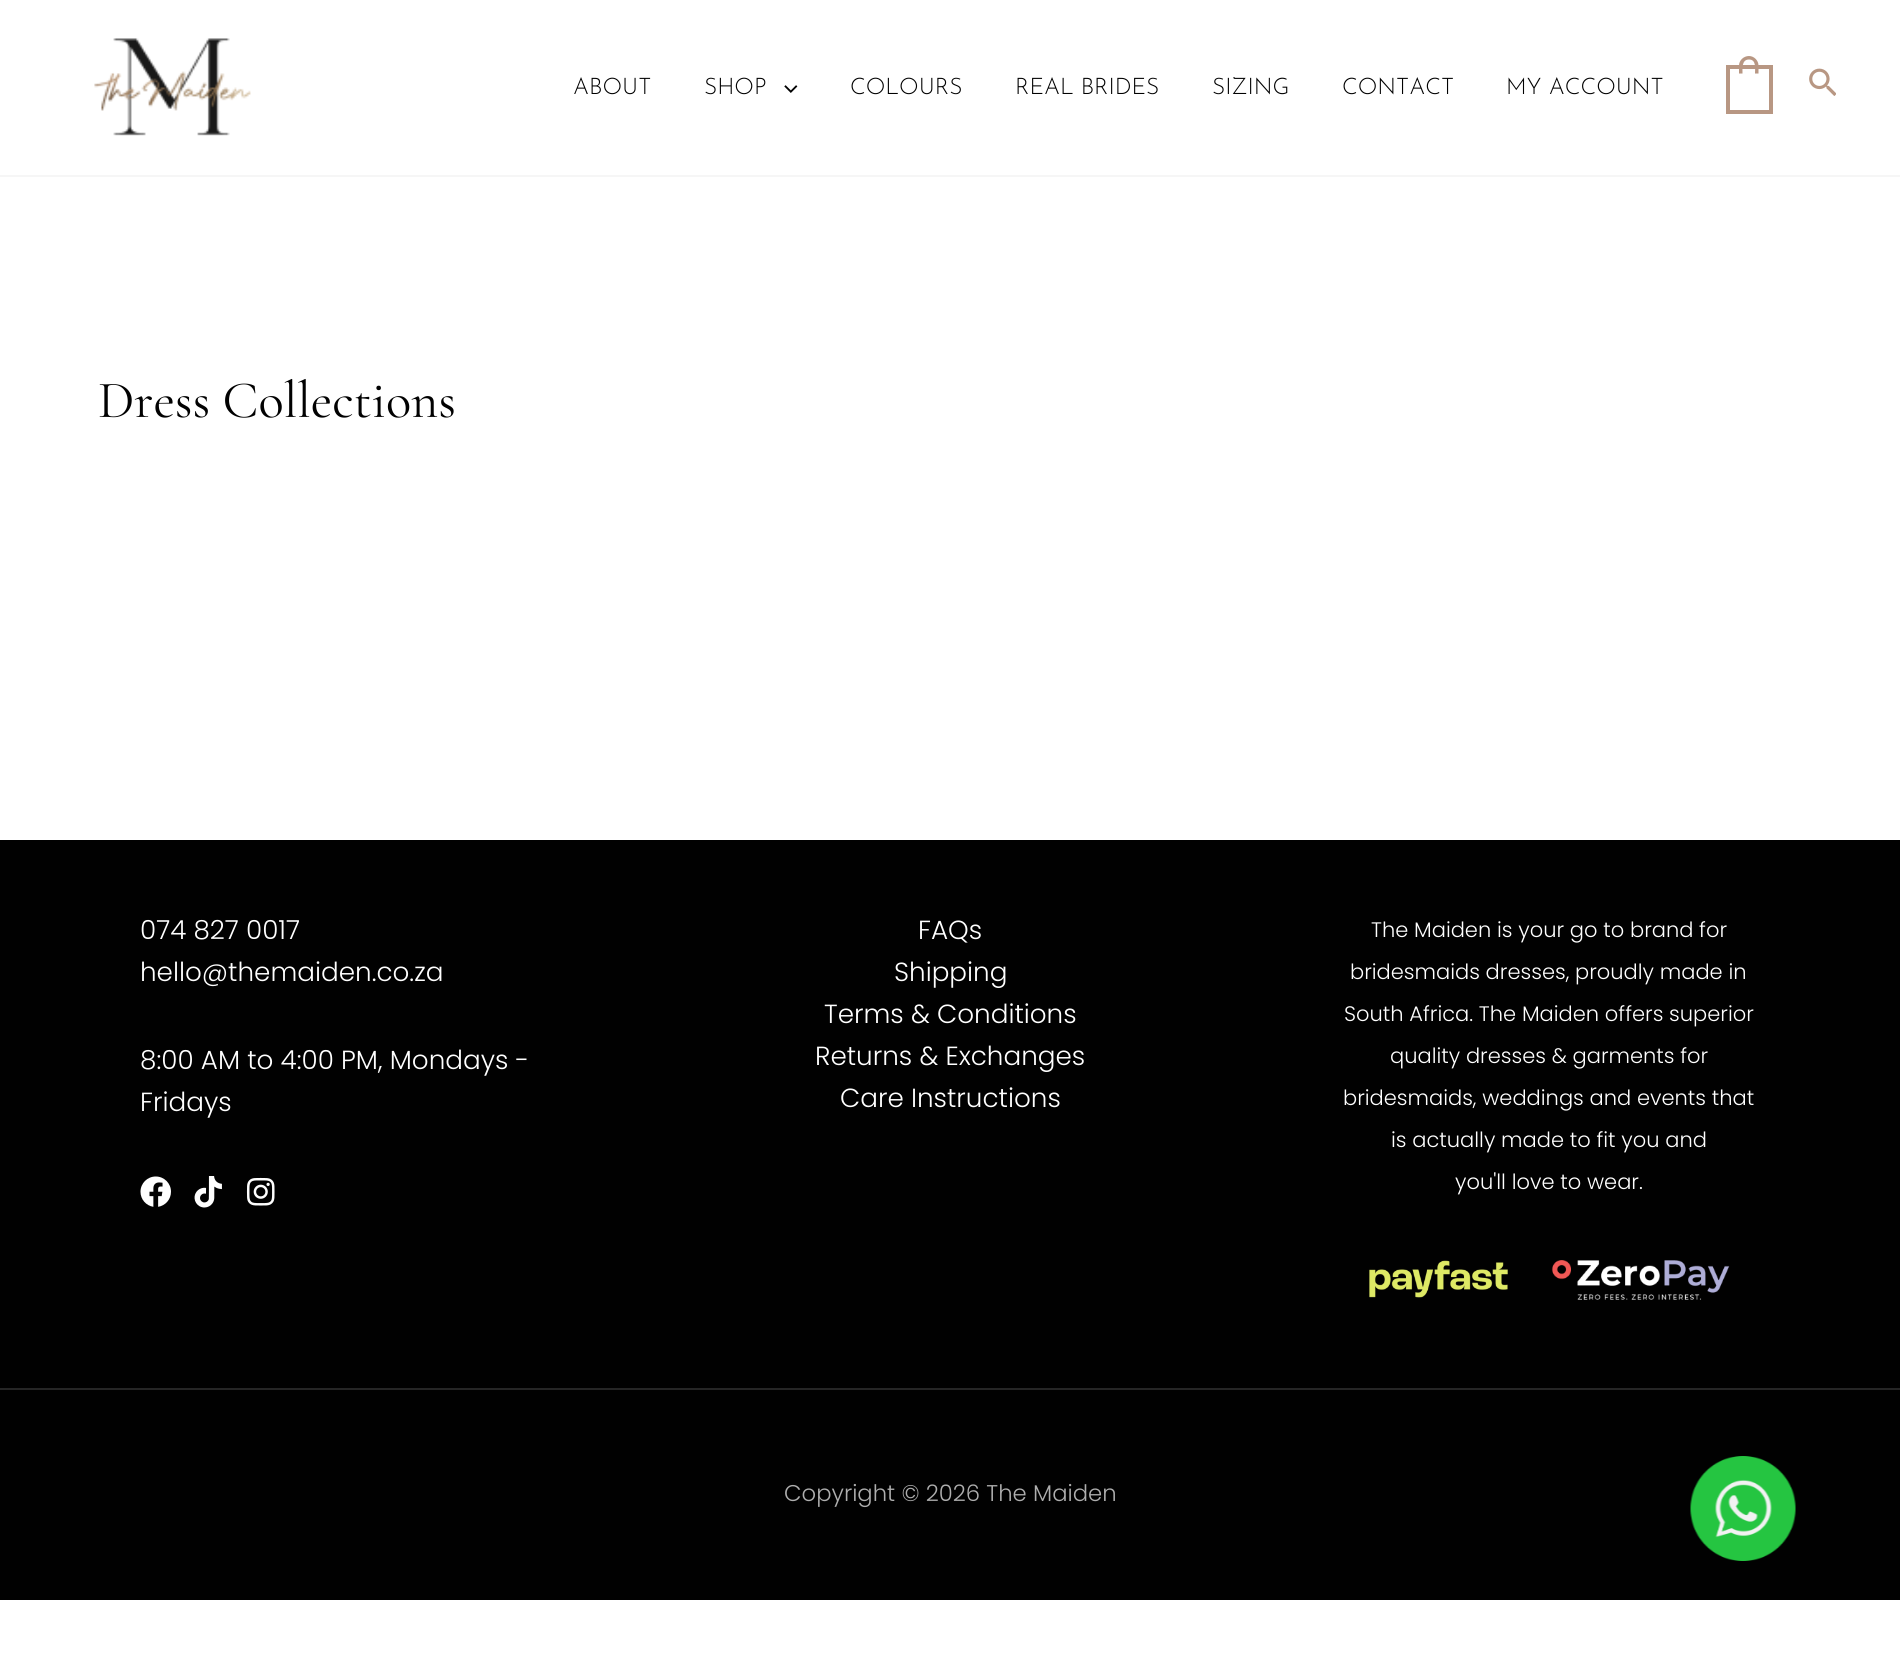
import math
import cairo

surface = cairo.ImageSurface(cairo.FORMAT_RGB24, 1900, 1666)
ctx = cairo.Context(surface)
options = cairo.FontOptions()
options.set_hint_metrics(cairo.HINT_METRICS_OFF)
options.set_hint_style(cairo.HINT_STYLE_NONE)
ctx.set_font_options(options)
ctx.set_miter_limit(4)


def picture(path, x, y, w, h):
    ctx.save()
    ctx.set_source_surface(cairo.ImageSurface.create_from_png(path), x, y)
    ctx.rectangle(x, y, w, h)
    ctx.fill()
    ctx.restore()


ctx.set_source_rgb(1, 1, 1)
ctx.paint()
ctx.set_source_rgb(0.961, 0.961, 0.961)
ctx.rectangle(0, 175, 1900, 2)
ctx.fill()
picture("img1.png", 94, 38, 157, 98)
ctx.select_font_face("Josefin Sans Thin")
ctx.set_font_size(22.75)
ctx.set_source_rgb(0.004, 0.004, 0.004)
ctx.move_to(573, 94)
ctx.show_text("ABOUT")
ctx.move_to(704, 94)
ctx.show_text("SHOP")
picture("img2.png", 784, 85, 14, 8)
ctx.move_to(850, 94)
ctx.show_text("COLOURS")
ctx.move_to(1015, 94)
ctx.show_text("REAL BRIDES")
ctx.move_to(1212, 94)
ctx.show_text("SIZING")
ctx.move_to(1342, 94)
ctx.show_text("CONTACT")
ctx.move_to(1506, 94)
ctx.show_text("MY ACCOUNT")
ctx.rectangle(1728, 67, 43, 45)
ctx.set_source_rgb(0.722, 0.592, 0.514)
ctx.set_line_width(4)
ctx.stroke()
ctx.set_fill_rule(cairo.FILL_RULE_EVEN_ODD)
ctx.new_path()
ctx.move_to(1749, 56)
ctx.curve_to(1754, 56, 1758.5, 60.5, 1758.5, 65.5)
ctx.line_to(1758.5, 73.5)
ctx.line_to(1739, 73.5)
ctx.line_to(1739, 65.5)
ctx.curve_to(1739, 60.5, 1743.5, 56, 1749, 56)
ctx.close_path()
ctx.move_to(1749, 59.5)
ctx.curve_to(1756.5, 59.5, 1755, 68.5, 1755, 73.5)
ctx.line_to(1742.5, 73.5)
ctx.curve_to(1742.5, 68.5, 1741.5, 59.5, 1749, 59.5)
ctx.close_path()
ctx.fill()
picture("img3.png", 1809, 68, 27, 28)
ctx.select_font_face("Cormorant Garamond Light")
ctx.set_font_size(52.5)
ctx.set_source_rgb(0.004, 0.004, 0.004)
ctx.move_to(98, 417)
ctx.show_text("Dress Collections")
ctx.rectangle(0, 840, 1900, 548)
ctx.fill()
ctx.select_font_face("Poppins Light")
ctx.set_font_size(26.25)
ctx.set_source_rgb(1, 1, 1)
ctx.move_to(140, 939)
ctx.show_text("074 827 0017")
ctx.move_to(140, 981)
ctx.show_text("hello@themaiden.co.za")
ctx.move_to(140, 1069)
ctx.show_text("8:00 AM to 4:00 PM, Mondays -")
ctx.move_to(140, 1111)
ctx.show_text("Fridays")
picture("img4.png", 140, 1176, 31, 31)
picture("img5.png", 194, 1176, 28, 32)
picture("img6.png", 246, 1177, 29, 29)
ctx.move_to(918, 939)
ctx.show_text("FAQs")
ctx.move_to(894, 981)
ctx.show_text("Shipping")
ctx.move_to(824, 1023)
ctx.show_text("Terms & Conditions")
ctx.move_to(815, 1065)
ctx.show_text("Returns & Exchanges")
ctx.move_to(840, 1107)
ctx.show_text("Care Instructions")
ctx.set_font_size(21)
ctx.move_to(1371, 937)
ctx.show_text("The Maiden is your go to brand for")
ctx.move_to(1350, 979)
ctx.show_text("bridesmaids dresses, proudly made in")
ctx.move_to(1344, 1021)
ctx.show_text("South Africa. The Maiden offers superior")
ctx.move_to(1390, 1063)
ctx.show_text("quality dresses & garments for")
ctx.move_to(1343, 1105)
ctx.show_text("bridesmaids, weddings and events that")
ctx.move_to(1391, 1147)
ctx.show_text("is actually made to fit you and")
ctx.move_to(1455, 1189)
ctx.show_text("you'll love to wear.")
picture("img7.png", 1369, 1260, 139, 38)
picture("img8.png", 1551, 1260, 179, 40)
ctx.set_source_rgb(0.004, 0.004, 0.004)
ctx.rectangle(0, 1390, 1900, 210)
ctx.fill()
ctx.set_source_rgb(0.145, 0.145, 0.145)
ctx.rectangle(0, 1388, 1900, 2)
ctx.fill()
ctx.set_font_size(22.75)
ctx.set_source_rgb(0.682, 0.682, 0.682)
ctx.move_to(784, 1501)
ctx.show_text("Copyright © 2026 The Maiden")
picture("img9.png", 1690, 1456, 106, 105)
surface.write_to_png("page.png")
